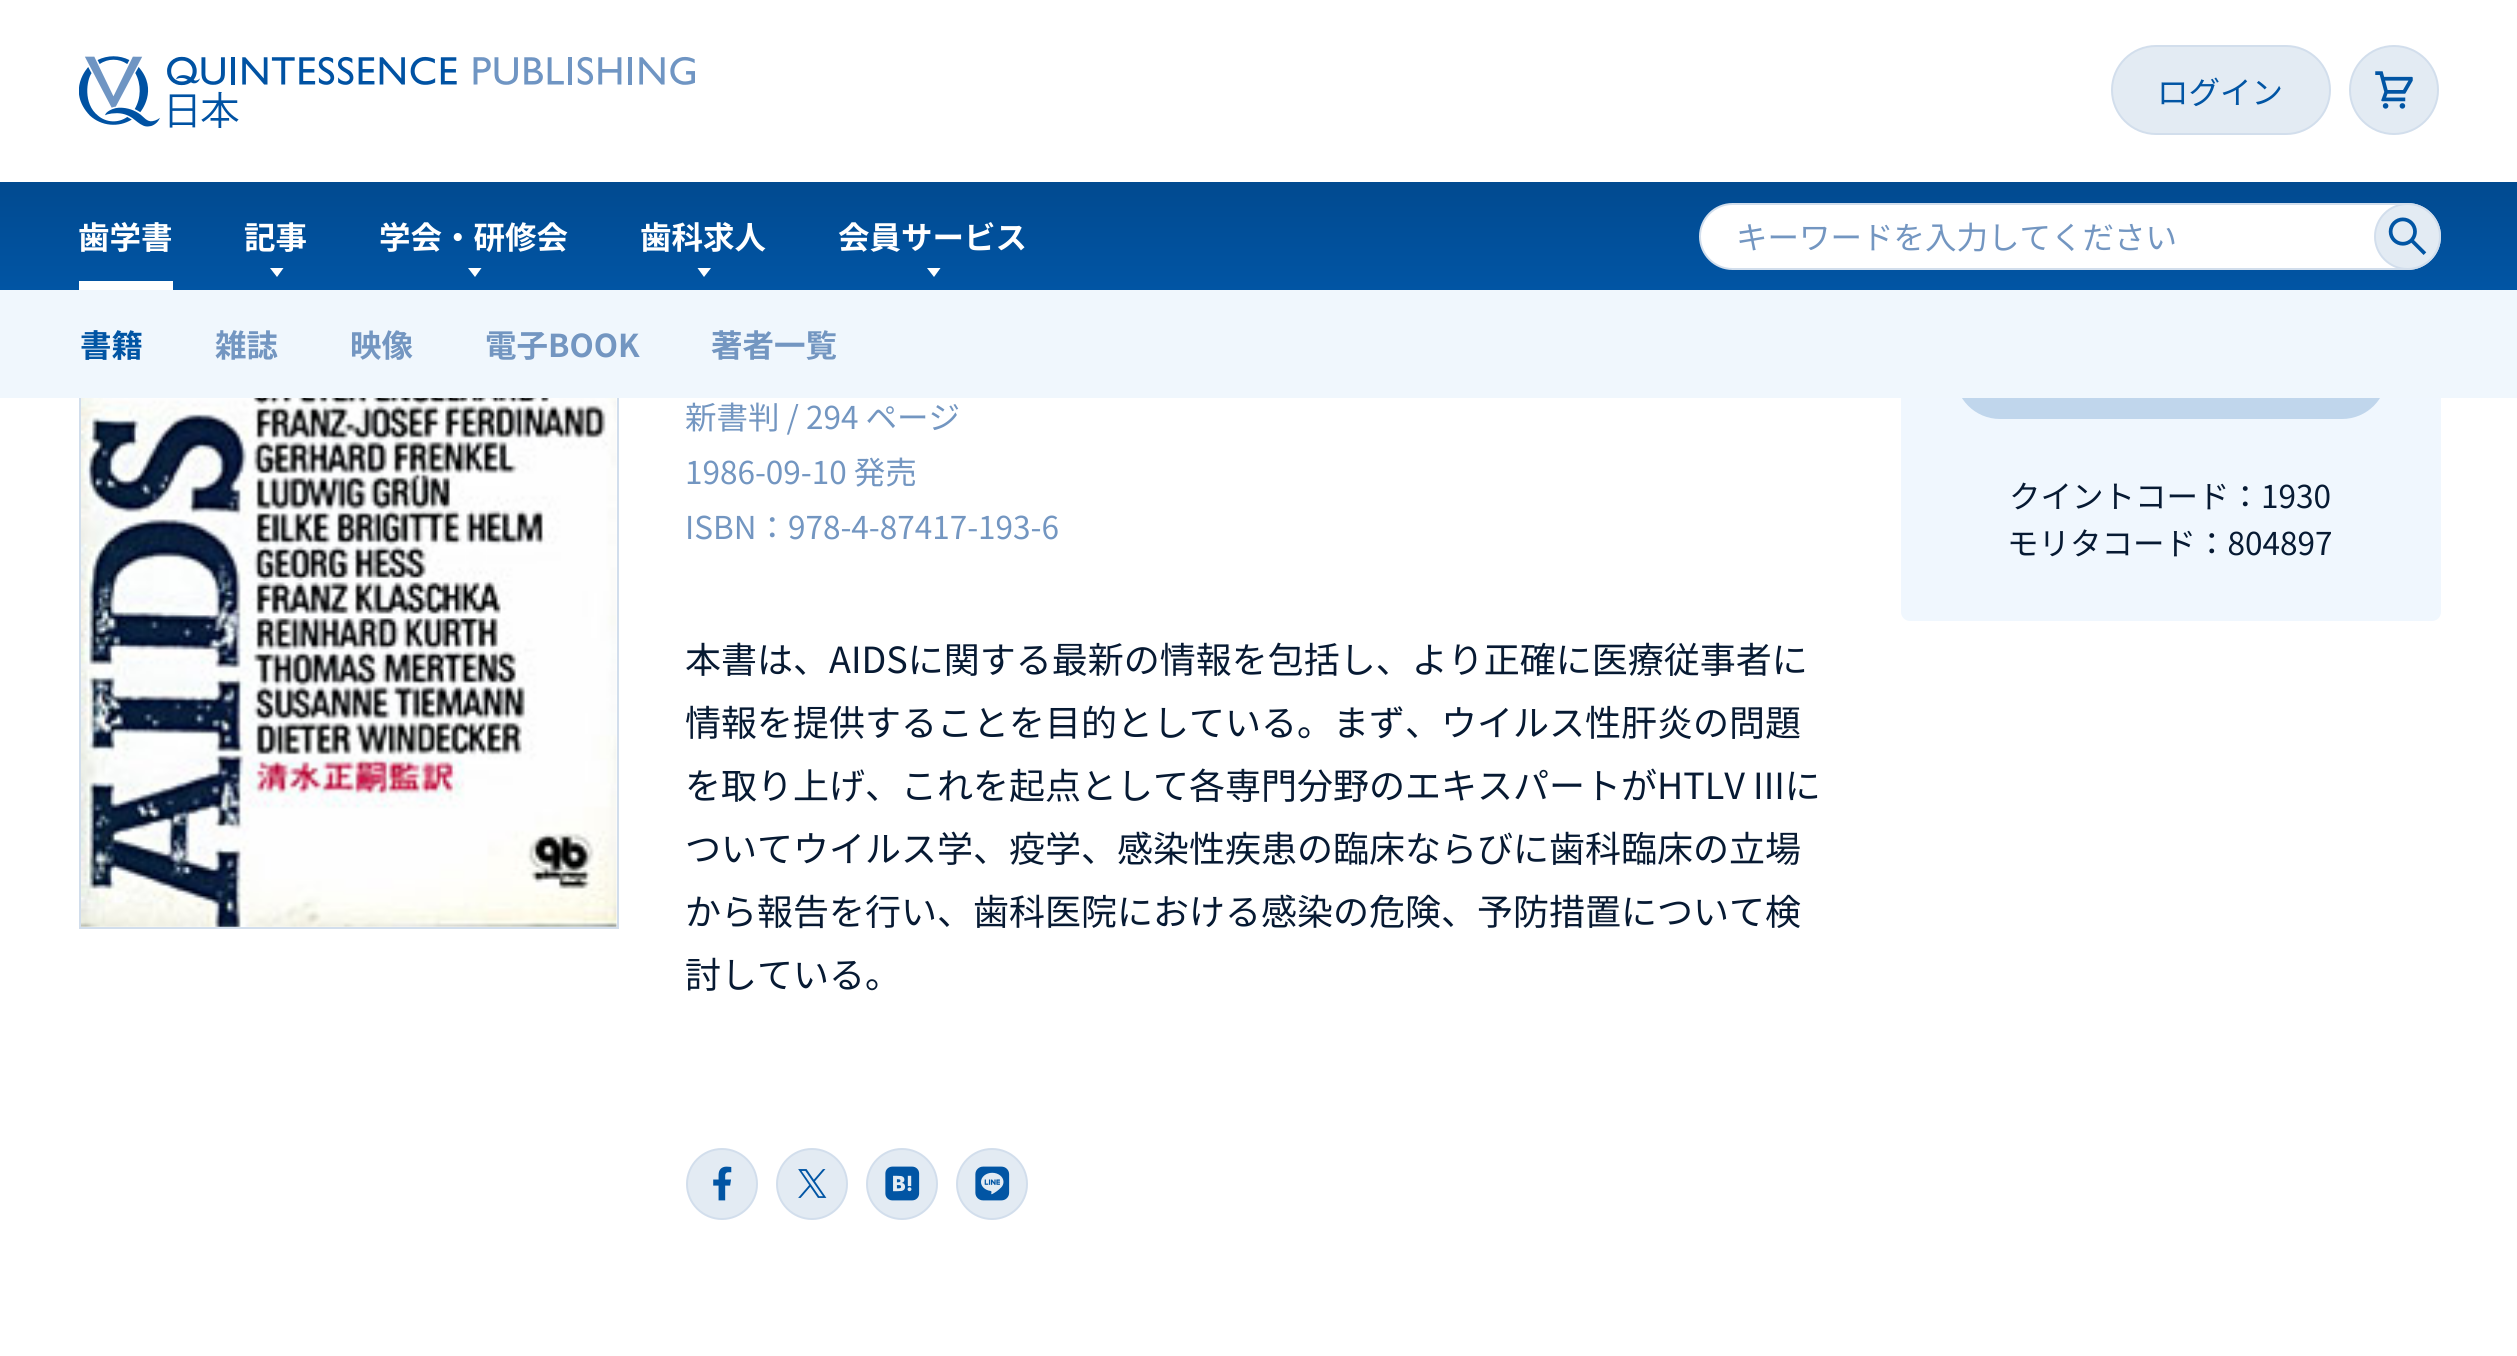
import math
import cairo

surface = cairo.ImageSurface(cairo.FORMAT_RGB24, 2517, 1356)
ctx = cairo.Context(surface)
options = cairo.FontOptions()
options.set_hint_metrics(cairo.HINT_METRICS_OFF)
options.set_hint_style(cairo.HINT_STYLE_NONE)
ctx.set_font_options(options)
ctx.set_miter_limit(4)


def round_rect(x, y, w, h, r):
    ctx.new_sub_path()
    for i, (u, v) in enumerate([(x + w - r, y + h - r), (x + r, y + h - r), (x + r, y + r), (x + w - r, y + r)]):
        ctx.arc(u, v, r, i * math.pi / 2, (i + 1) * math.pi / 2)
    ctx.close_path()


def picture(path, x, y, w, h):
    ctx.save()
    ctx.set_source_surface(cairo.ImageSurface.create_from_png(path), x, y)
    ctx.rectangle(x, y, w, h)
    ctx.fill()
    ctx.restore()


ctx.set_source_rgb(1, 1, 1)
ctx.paint()
ctx.rectangle(80, 89, 538, 839)
ctx.set_source_rgb(0.824, 0.871, 0.925)
ctx.stroke()
ctx.set_source_rgb(0.941, 0.965, 0.996)
round_rect(1901, 88, 540, 533, 9)
ctx.fill()
ctx.set_source_rgb(1, 1, 1)
ctx.rectangle(79, 88, 2362, 94)
ctx.fill()
picture("img1.png", 79, 56, 616, 72)
ctx.set_source_rgb(0.89, 0.918, 0.953)
ctx.arc(2394, 90, 44, 0, 2 * math.pi)
ctx.fill_preserve()
ctx.set_source_rgb(0.824, 0.871, 0.925)
ctx.stroke()
picture("img2.png", 2375, 71, 38, 38)
gradient = cairo.LinearGradient(1259, 182, 1259, 290)
gradient.add_color_stop_rgba(0, 0.004, 0.29, 0.565, 1)
gradient.add_color_stop_rgba(1, 0.004, 0.333, 0.643, 1)
ctx.set_source(gradient)
ctx.rectangle(0, 182, 2517, 108)
ctx.fill()
ctx.set_source_rgb(0.89, 0.918, 0.953)
round_rect(2112, 46, 218, 88, 44)
ctx.fill_preserve()
ctx.set_source_rgb(0.824, 0.871, 0.925)
ctx.stroke()
ctx.select_font_face("Noto Sans JP")
ctx.set_font_size(31.5)
ctx.set_source_rgb(0.004, 0.333, 0.643)
ctx.move_to(2157, 104)
ctx.show_text("ログイン")
ctx.select_font_face("Noto Sans JP", cairo.FONT_SLANT_NORMAL, cairo.FONT_WEIGHT_BOLD)
ctx.set_source_rgb(1, 1, 1)
ctx.move_to(78, 249)
ctx.show_text("歯学書")
ctx.rectangle(79, 281, 94, 9)
ctx.fill()
ctx.set_source_rgb(0.753, 0.839, 0.925)
round_rect(1956, 330, 430, 88, 44)
ctx.fill_preserve()
ctx.stroke()
ctx.set_source_rgb(0.941, 0.965, 0.992)
ctx.rectangle(0, 290, 2517, 108)
ctx.fill()
ctx.set_source_rgb(0.004, 0.333, 0.643)
ctx.move_to(80, 357)
ctx.show_text("書籍")
ctx.set_source_rgb(0.451, 0.588, 0.757)
ctx.move_to(215, 357)
ctx.show_text("雑誌")
ctx.move_to(350, 357)
ctx.show_text("映像")
ctx.move_to(485, 357)
ctx.show_text("電子BOOK")
ctx.move_to(711, 357)
ctx.show_text("著者一覧")
ctx.set_source_rgb(1, 1, 1)
ctx.move_to(244, 249)
ctx.show_text("記事")
ctx.new_path()
ctx.move_to(270, 268)
ctx.line_to(283.5, 268)
ctx.line_to(277, 277)
ctx.close_path()
ctx.fill()
ctx.move_to(379, 249)
ctx.show_text("学会・研修会")
ctx.new_path()
ctx.move_to(468, 268)
ctx.line_to(481.5, 268)
ctx.line_to(475, 277)
ctx.close_path()
ctx.fill()
ctx.move_to(640, 249)
ctx.show_text("歯科求人")
ctx.new_path()
ctx.move_to(697.5, 268)
ctx.line_to(711, 268)
ctx.line_to(704, 277)
ctx.close_path()
ctx.fill()
ctx.move_to(838, 249)
ctx.show_text("会員サービス")
ctx.new_path()
ctx.move_to(927, 268)
ctx.line_to(940.5, 268)
ctx.line_to(934, 277)
ctx.close_path()
ctx.fill()
round_rect(1700, 204, 740, 65, 32.5)
ctx.fill_preserve()
ctx.set_source_rgb(0.824, 0.871, 0.925)
ctx.stroke()
ctx.select_font_face("Noto Sans JP")
ctx.set_source_rgb(0.451, 0.588, 0.757)
ctx.move_to(1736, 249)
ctx.show_text("キーワードを入力してください")
ctx.set_source_rgb(0.89, 0.918, 0.953)
ctx.new_path()
ctx.arc(2407.5, 236.5, 32.5, 0, 2 * math.pi)
ctx.fill_preserve()
ctx.set_source_rgb(0.824, 0.871, 0.925)
ctx.stroke()
picture("img3.png", 2388, 217, 39, 38)
picture("img4.png", 81, 398, 536, 529)
ctx.set_source_rgb(0.451, 0.588, 0.757)
ctx.move_to(685, 429)
ctx.show_text("新書判 / 294 ページ")
ctx.move_to(685, 484)
ctx.show_text("1986-09-10 発売")
ctx.move_to(685, 539)
ctx.show_text("ISBN：978-4-87417-193-6")
ctx.set_source_rgb(0.031, 0.102, 0.2)
ctx.move_to(2009, 508)
ctx.show_text("クイントコード：1930")
ctx.move_to(2007, 555)
ctx.show_text("モリタコード：804897")
ctx.set_font_size(36)
ctx.move_to(685, 673)
ctx.show_text("本書は、AIDSに関する最新の情報を包括し、より正確に医療従事者に")
ctx.move_to(685, 736)
ctx.show_text("情報を提供することを目的としている。まず、ウイルス性肝炎の問題")
ctx.move_to(685, 799)
ctx.show_text("を取り上げ、これを起点として各専門分野のエキスパートがHTLV IIIに")
ctx.move_to(685, 862)
ctx.show_text("ついてウイルス学、疫学、感染性疾患の臨床ならびに歯科臨床の立場")
ctx.move_to(685, 925)
ctx.show_text("から報告を行い、歯科医院における感染の危険、予防措置について検")
ctx.move_to(685, 988)
ctx.show_text("討している。")
ctx.set_source_rgb(0.89, 0.918, 0.953)
ctx.new_path()
ctx.arc(722, 1184, 35, 0, 2 * math.pi)
ctx.fill_preserve()
ctx.set_source_rgb(0.824, 0.871, 0.925)
ctx.stroke()
picture("img5.png", 713, 1166, 19, 35)
ctx.set_source_rgb(0.89, 0.918, 0.953)
ctx.arc(812, 1184, 35, 0, 2 * math.pi)
ctx.fill_preserve()
ctx.set_source_rgb(0.824, 0.871, 0.925)
ctx.stroke()
picture("img6.png", 798, 1169, 29, 29)
ctx.set_source_rgb(0.89, 0.918, 0.953)
ctx.arc(902, 1184, 35, 0, 2 * math.pi)
ctx.fill_preserve()
ctx.set_source_rgb(0.824, 0.871, 0.925)
ctx.stroke()
picture("img7.png", 885, 1166, 35, 35)
ctx.set_source_rgb(0.89, 0.918, 0.953)
ctx.arc(992, 1184, 35, 0, 2 * math.pi)
ctx.fill_preserve()
ctx.set_source_rgb(0.824, 0.871, 0.925)
ctx.stroke()
picture("img8.png", 975, 1166, 35, 35)
surface.write_to_png("page.png")
